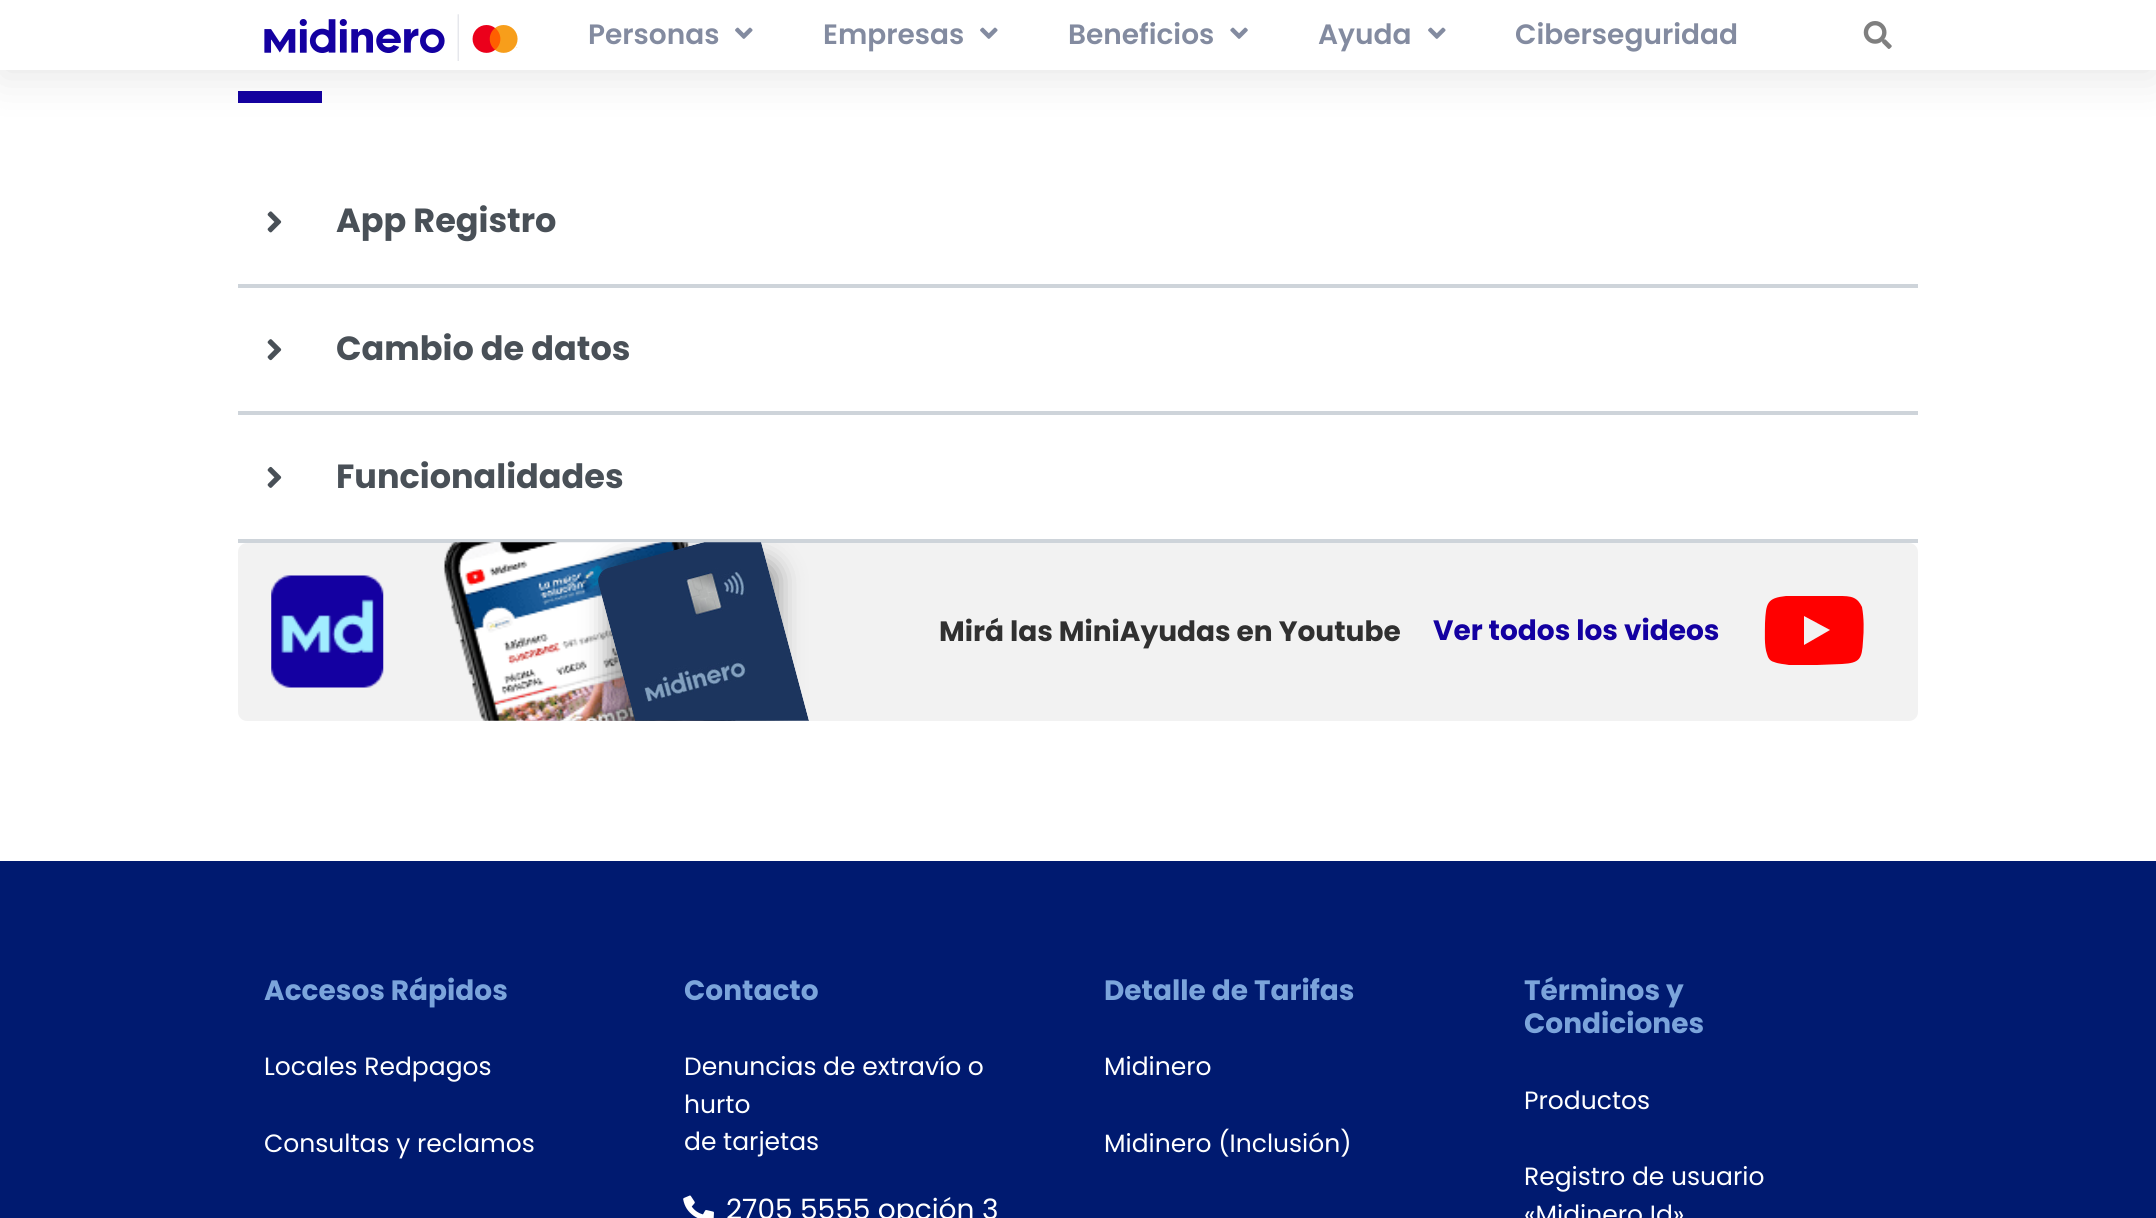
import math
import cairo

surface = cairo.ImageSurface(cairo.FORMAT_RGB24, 2156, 1218)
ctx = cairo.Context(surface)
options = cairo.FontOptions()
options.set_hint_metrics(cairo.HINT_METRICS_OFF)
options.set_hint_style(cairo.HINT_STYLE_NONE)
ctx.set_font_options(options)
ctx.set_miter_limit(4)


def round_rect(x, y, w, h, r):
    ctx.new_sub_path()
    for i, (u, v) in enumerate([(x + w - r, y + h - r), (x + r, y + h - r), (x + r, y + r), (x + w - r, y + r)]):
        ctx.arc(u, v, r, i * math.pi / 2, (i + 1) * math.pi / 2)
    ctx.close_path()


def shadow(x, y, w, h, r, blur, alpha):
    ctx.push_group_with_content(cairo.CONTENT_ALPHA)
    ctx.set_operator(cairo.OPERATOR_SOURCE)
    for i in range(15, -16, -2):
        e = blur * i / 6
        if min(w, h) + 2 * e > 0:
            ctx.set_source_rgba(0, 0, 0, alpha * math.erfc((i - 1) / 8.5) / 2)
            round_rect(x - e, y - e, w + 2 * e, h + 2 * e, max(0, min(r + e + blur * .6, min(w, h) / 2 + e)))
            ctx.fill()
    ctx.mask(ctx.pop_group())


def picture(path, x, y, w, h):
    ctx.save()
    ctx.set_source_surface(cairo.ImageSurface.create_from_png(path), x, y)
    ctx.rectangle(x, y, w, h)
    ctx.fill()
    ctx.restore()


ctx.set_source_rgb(1, 1, 1)
ctx.paint()
ctx.set_source_rgb(0.078, 0, 0.631)
ctx.rectangle(238, 91, 84, 12)
ctx.fill()
ctx.set_source_rgb(0, 0, 0)
shadow(0, 7, 2156, 70, 0, 22, 0.1)
ctx.set_source_rgb(1, 1, 1)
ctx.rectangle(0, 0, 2156, 70)
ctx.fill()
picture("img1.png", 264, 14, 254, 47)
ctx.select_font_face("Poppins SemiBold")
ctx.set_font_size(28)
ctx.set_source_rgb(0.514, 0.545, 0.627)
ctx.move_to(588, 44)
ctx.show_text("Personas")
picture("img2.png", 735, 27, 18, 12)
ctx.move_to(823, 44)
ctx.show_text("Empresas")
picture("img2.png", 980, 27, 18, 12)
ctx.move_to(1068, 44)
ctx.show_text("Beneficios")
picture("img3.png", 1230, 27, 18, 12)
ctx.move_to(1318, 44)
ctx.show_text("Ayuda")
picture("img2.png", 1428, 27, 18, 12)
ctx.move_to(1515, 44)
ctx.show_text("Ciberseguridad")
picture("img4.png", 1863, 21, 29, 28)
ctx.set_source_rgb(0.808, 0.831, 0.855)
ctx.rectangle(238, 284, 1680, 4)
ctx.fill()
picture("img5.png", 267, 211, 15, 22)
ctx.select_font_face("Poppins", cairo.FONT_SLANT_NORMAL, cairo.FONT_WEIGHT_BOLD)
ctx.set_font_size(33.5)
ctx.set_source_rgb(0.286, 0.314, 0.341)
ctx.move_to(336, 232)
ctx.show_text("App Registro")
ctx.set_source_rgb(0.808, 0.831, 0.855)
ctx.rectangle(238, 411, 1680, 4)
ctx.fill()
picture("img6.png", 267, 339, 15, 22)
ctx.set_source_rgb(0.286, 0.314, 0.341)
ctx.move_to(336, 360)
ctx.show_text("Cambio de datos")
ctx.set_source_rgb(0.808, 0.831, 0.855)
ctx.rectangle(238, 539, 1680, 4)
ctx.fill()
picture("img7.png", 267, 466, 15, 22)
ctx.set_source_rgb(0.286, 0.314, 0.341)
ctx.move_to(336, 488)
ctx.show_text("Funcionalidades")
ctx.set_source_rgb(0.949, 0.949, 0.949)
round_rect(238, 543, 1680, 178, 9)
ctx.fill()
picture("img8.png", 271, 575, 113, 113)
picture("img10.png", 443, 542, 293, 179)
ctx.set_source_rgb(0, 0.102, 0.439)
ctx.rectangle(0, 861, 2156, 357)
ctx.fill()
ctx.save()
round_rect(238, 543, 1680, 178, 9)
ctx.clip()
ctx.set_source_rgb(0, 0, 0)
shadow(609, 562, 168, 266, 14, 13, 0.4)
ctx.restore()
picture("img9.png", 598, 542, 211, 179)
ctx.set_font_size(28)
ctx.set_source_rgb(0.188, 0.188, 0.188)
ctx.move_to(939, 641)
ctx.show_text("Mirá las MiniAyudas en Youtube")
ctx.set_source_rgb(0.078, 0, 0.631)
ctx.move_to(1433, 640)
ctx.show_text("Ver todos los videos")
ctx.set_source_rgb(1, 0, 0)
ctx.new_path()
ctx.move_to(1862, 607)
ctx.curve_to(1864, 618, 1864, 630, 1863, 641)
ctx.curve_to(1862, 659, 1860, 663, 1842, 664)
ctx.line_to(1817, 665)
ctx.line_to(1789, 665)
ctx.curve_to(1784, 664, 1779, 664, 1774, 662)
ctx.curve_to(1770, 661, 1768, 658, 1767, 654)
ctx.curve_to(1764, 646, 1765, 632, 1765, 623)
ctx.curve_to(1766, 603, 1767, 598, 1786, 596)
ctx.line_to(1813, 596)
ctx.line_to(1839, 596)
ctx.curve_to(1844, 596, 1850, 596, 1854, 598)
ctx.curve_to(1858, 600, 1860, 603, 1862, 607)
ctx.close_path()
ctx.move_to(1804, 645)
ctx.line_to(1830, 630)
ctx.line_to(1804, 616)
ctx.close_path()
ctx.fill()
ctx.set_source_rgb(0.482, 0.643, 0.859)
ctx.move_to(264, 1000)
ctx.show_text("Accesos Rápidos")
ctx.select_font_face("Poppins")
ctx.set_font_size(25)
ctx.set_source_rgb(1, 1, 1)
ctx.move_to(264, 1075)
ctx.show_text("Locales Redpagos")
ctx.move_to(264, 1152)
ctx.show_text("Consultas y reclamos")
ctx.select_font_face("Poppins", cairo.FONT_SLANT_NORMAL, cairo.FONT_WEIGHT_BOLD)
ctx.set_font_size(28)
ctx.set_source_rgb(0.482, 0.643, 0.859)
ctx.move_to(684, 1000)
ctx.show_text("Contacto")
ctx.select_font_face("Poppins")
ctx.set_font_size(25)
ctx.set_source_rgb(1, 1, 1)
ctx.move_to(684, 1075)
ctx.show_text("Denuncias de extravío o")
ctx.move_to(684, 1113)
ctx.show_text("hurto")
ctx.move_to(684, 1150)
ctx.show_text("de tarjetas")
picture("img11.png", 683, 1195, 31, 23)
ctx.set_font_size(28)
ctx.move_to(726, 1219)
ctx.show_text("2705 5555 opción 3")
ctx.select_font_face("Poppins", cairo.FONT_SLANT_NORMAL, cairo.FONT_WEIGHT_BOLD)
ctx.set_source_rgb(0.482, 0.643, 0.859)
ctx.move_to(1104, 1000)
ctx.show_text("Detalle de Tarifas")
ctx.select_font_face("Poppins")
ctx.set_font_size(25)
ctx.set_source_rgb(1, 1, 1)
ctx.move_to(1104, 1075)
ctx.show_text("Midinero")
ctx.move_to(1104, 1152)
ctx.show_text("Midinero (Inclusión)")
ctx.select_font_face("Poppins", cairo.FONT_SLANT_NORMAL, cairo.FONT_WEIGHT_BOLD)
ctx.set_font_size(28)
ctx.set_source_rgb(0.482, 0.643, 0.859)
ctx.move_to(1524, 1000)
ctx.show_text("Términos y")
ctx.move_to(1524, 1033)
ctx.show_text("Condiciones")
ctx.select_font_face("Poppins")
ctx.set_font_size(25)
ctx.set_source_rgb(1, 1, 1)
ctx.move_to(1524, 1109)
ctx.show_text("Productos")
ctx.move_to(1524, 1185)
ctx.show_text("Registro de usuario")
ctx.move_to(1524, 1223)
ctx.show_text("«Midinero Id»")
surface.write_to_png("page.png")
